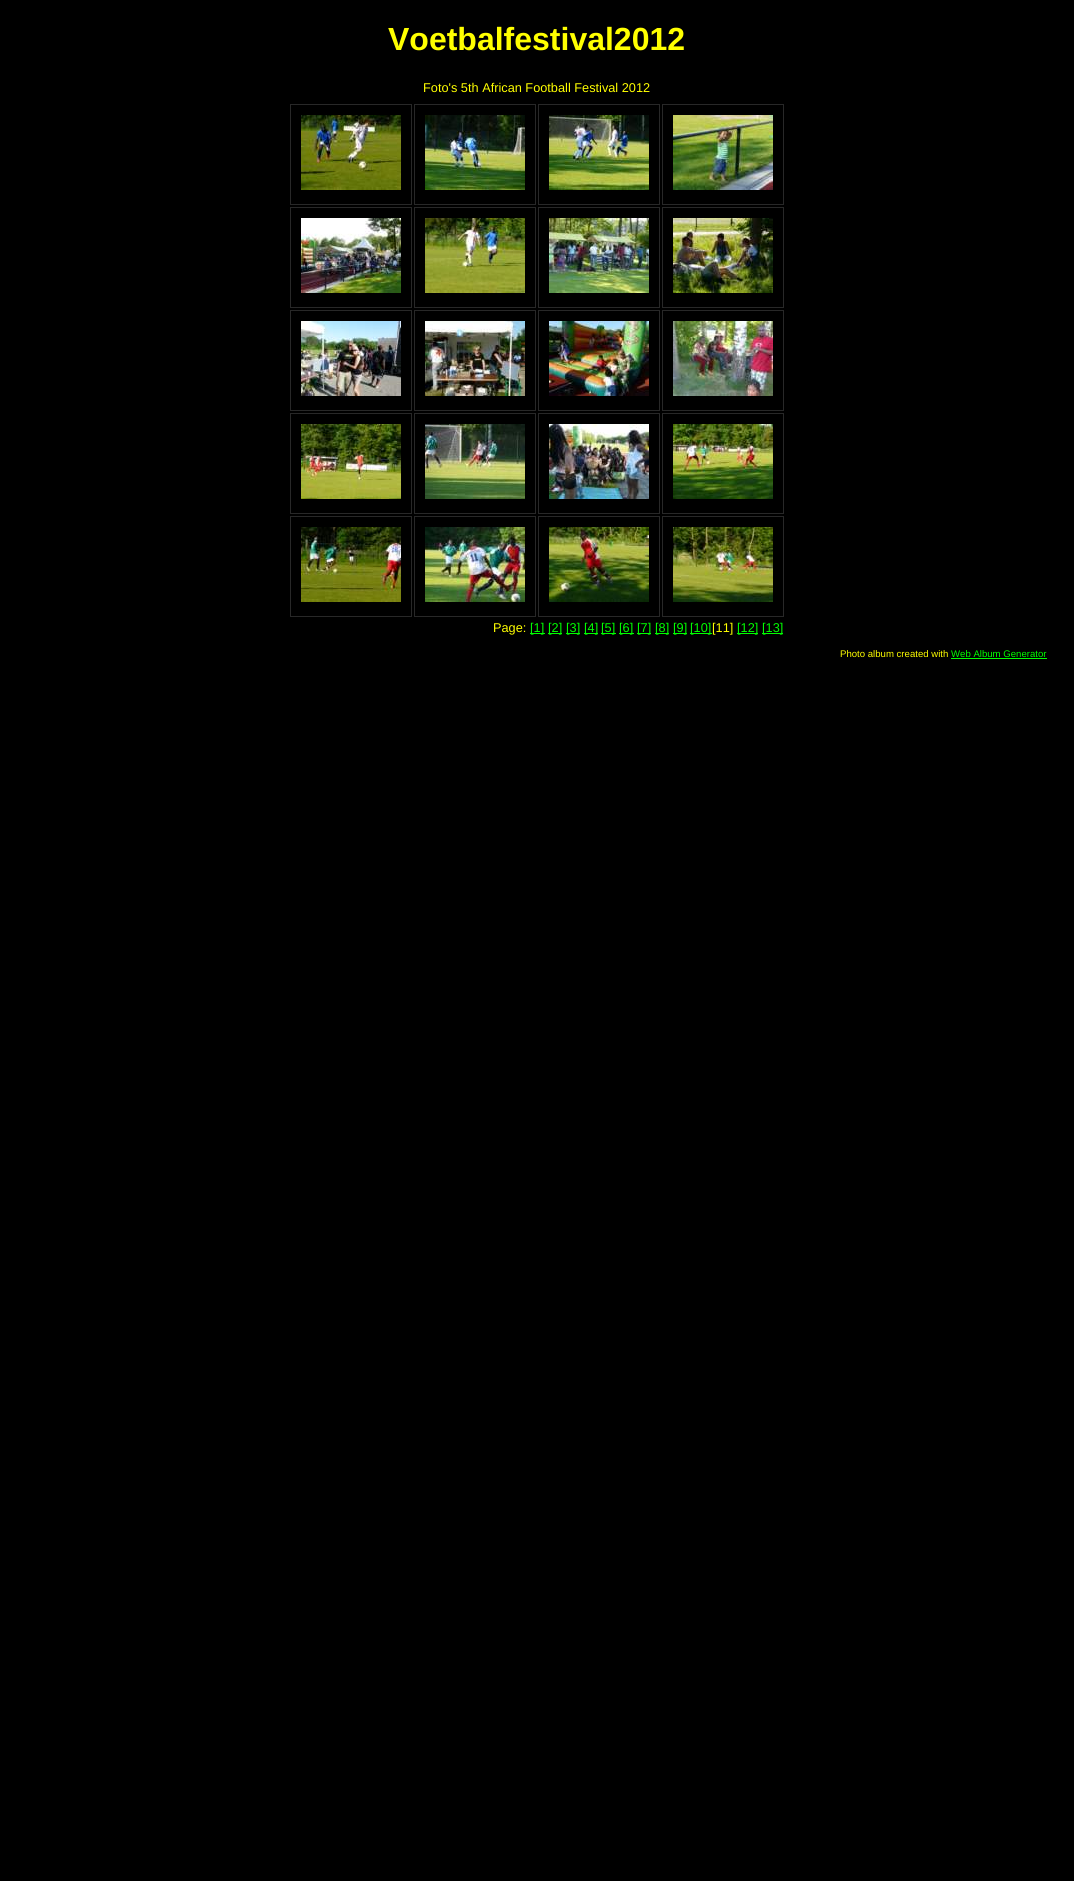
import math
import cairo

surface = cairo.ImageSurface(cairo.FORMAT_RGB24, 1074, 1881)
ctx = cairo.Context(surface)
options = cairo.FontOptions()
options.set_hint_metrics(cairo.HINT_METRICS_OFF)
options.set_hint_style(cairo.HINT_STYLE_NONE)
ctx.set_font_options(options)
ctx.set_miter_limit(4)


def picture(path, x, y, w, h):
    ctx.save()
    ctx.set_source_surface(cairo.ImageSurface.create_from_png(path), x, y)
    ctx.rectangle(x, y, w, h)
    ctx.fill()
    ctx.restore()


ctx.set_source_rgb(0, 0, 0)
ctx.paint()
ctx.select_font_face("Liberation Sans", cairo.FONT_SLANT_NORMAL, cairo.FONT_WEIGHT_BOLD)
ctx.set_font_size(32)
ctx.set_source_rgb(1, 1, 0)
ctx.move_to(388, 50)
ctx.show_text("Voetbalfestival2012")
ctx.select_font_face("Liberation Sans")
ctx.set_font_size(12.75)
ctx.move_to(423, 92)
ctx.show_text("Foto's 5th African Football Festival 2012")
ctx.rectangle(290.5, 104.5, 121, 100)
ctx.set_source_rgb(0.157, 0.157, 0.157)
ctx.set_line_width(1)
ctx.stroke()
picture("img1.png", 301, 115, 100, 75)
ctx.rectangle(414.5, 104.5, 121, 100)
ctx.stroke()
picture("img2.png", 425, 115, 100, 75)
ctx.rectangle(538.5, 104.5, 121, 100)
ctx.stroke()
picture("img3.png", 549, 115, 100, 75)
ctx.rectangle(662.5, 104.5, 121, 100)
ctx.stroke()
picture("img4.png", 673, 115, 100, 75)
ctx.rectangle(290.5, 207.5, 121, 100)
ctx.stroke()
picture("img5.png", 301, 218, 100, 75)
ctx.rectangle(414.5, 207.5, 121, 100)
ctx.stroke()
picture("img6.png", 425, 218, 100, 75)
ctx.rectangle(538.5, 207.5, 121, 100)
ctx.stroke()
picture("img7.png", 549, 218, 100, 75)
ctx.rectangle(662.5, 207.5, 121, 100)
ctx.stroke()
picture("img8.png", 673, 218, 100, 75)
ctx.rectangle(290.5, 310.5, 121, 100)
ctx.stroke()
picture("img9.png", 301, 321, 100, 75)
ctx.rectangle(414.5, 310.5, 121, 100)
ctx.stroke()
picture("img10.png", 425, 321, 100, 75)
ctx.rectangle(538.5, 310.5, 121, 100)
ctx.stroke()
picture("img11.png", 549, 321, 100, 75)
ctx.rectangle(662.5, 310.5, 121, 100)
ctx.stroke()
picture("img12.png", 673, 321, 100, 75)
ctx.rectangle(290.5, 413.5, 121, 100)
ctx.stroke()
picture("img13.png", 301, 424, 100, 75)
ctx.rectangle(414.5, 413.5, 121, 100)
ctx.stroke()
picture("img14.png", 425, 424, 100, 75)
ctx.rectangle(538.5, 413.5, 121, 100)
ctx.stroke()
picture("img15.png", 549, 424, 100, 75)
ctx.rectangle(662.5, 413.5, 121, 100)
ctx.stroke()
picture("img16.png", 673, 424, 100, 75)
ctx.rectangle(290.5, 516.5, 121, 100)
ctx.stroke()
picture("img17.png", 301, 527, 100, 75)
ctx.rectangle(414.5, 516.5, 121, 100)
ctx.stroke()
picture("img18.png", 425, 527, 100, 75)
ctx.rectangle(538.5, 516.5, 121, 100)
ctx.stroke()
picture("img19.png", 549, 527, 100, 75)
ctx.rectangle(662.5, 516.5, 121, 100)
ctx.stroke()
picture("img20.png", 673, 527, 100, 75)
ctx.set_source_rgb(1, 1, 0)
ctx.move_to(493, 632)
ctx.show_text("Page:")
ctx.set_source_rgb(0, 1, 0)
ctx.rectangle(530, 633, 15, 1)
ctx.fill()
ctx.move_to(530, 632)
ctx.show_text("[1]")
ctx.rectangle(548, 633, 14, 1)
ctx.fill()
ctx.move_to(548, 632)
ctx.show_text("[2]")
ctx.rectangle(566, 633, 14, 1)
ctx.fill()
ctx.move_to(566, 632)
ctx.show_text("[3]")
ctx.rectangle(584, 633, 14, 1)
ctx.fill()
ctx.move_to(584, 632)
ctx.show_text("[4]")
ctx.rectangle(601, 633, 15, 1)
ctx.fill()
ctx.move_to(601, 632)
ctx.show_text("[5]")
ctx.rectangle(619, 633, 15, 1)
ctx.fill()
ctx.move_to(619, 632)
ctx.show_text("[6]")
ctx.rectangle(637, 633, 14, 1)
ctx.fill()
ctx.move_to(637, 632)
ctx.show_text("[7]")
ctx.rectangle(655, 633, 14, 1)
ctx.fill()
ctx.move_to(655, 632)
ctx.show_text("[8]")
ctx.rectangle(673, 633, 14, 1)
ctx.fill()
ctx.move_to(673, 632)
ctx.show_text("[9]")
ctx.rectangle(690, 633, 22, 1)
ctx.fill()
ctx.move_to(690, 632)
ctx.show_text("[10]")
ctx.set_source_rgb(1, 1, 0)
ctx.move_to(712, 632)
ctx.show_text("[11]")
ctx.set_source_rgb(0, 1, 0)
ctx.rectangle(737, 633, 21, 1)
ctx.fill()
ctx.move_to(737, 632)
ctx.show_text("[12]")
ctx.rectangle(762, 633, 21, 1)
ctx.fill()
ctx.move_to(762, 632)
ctx.show_text("[13]")
ctx.set_font_size(9.6)
ctx.set_source_rgb(1, 1, 0)
ctx.move_to(840, 657)
ctx.show_text("Photo album created with")
ctx.set_source_rgb(0, 1, 0)
ctx.move_to(951, 657)
ctx.show_text("Web Album Generator")
ctx.rectangle(951, 658, 96, 1)
ctx.fill()
surface.write_to_png("page.png")
